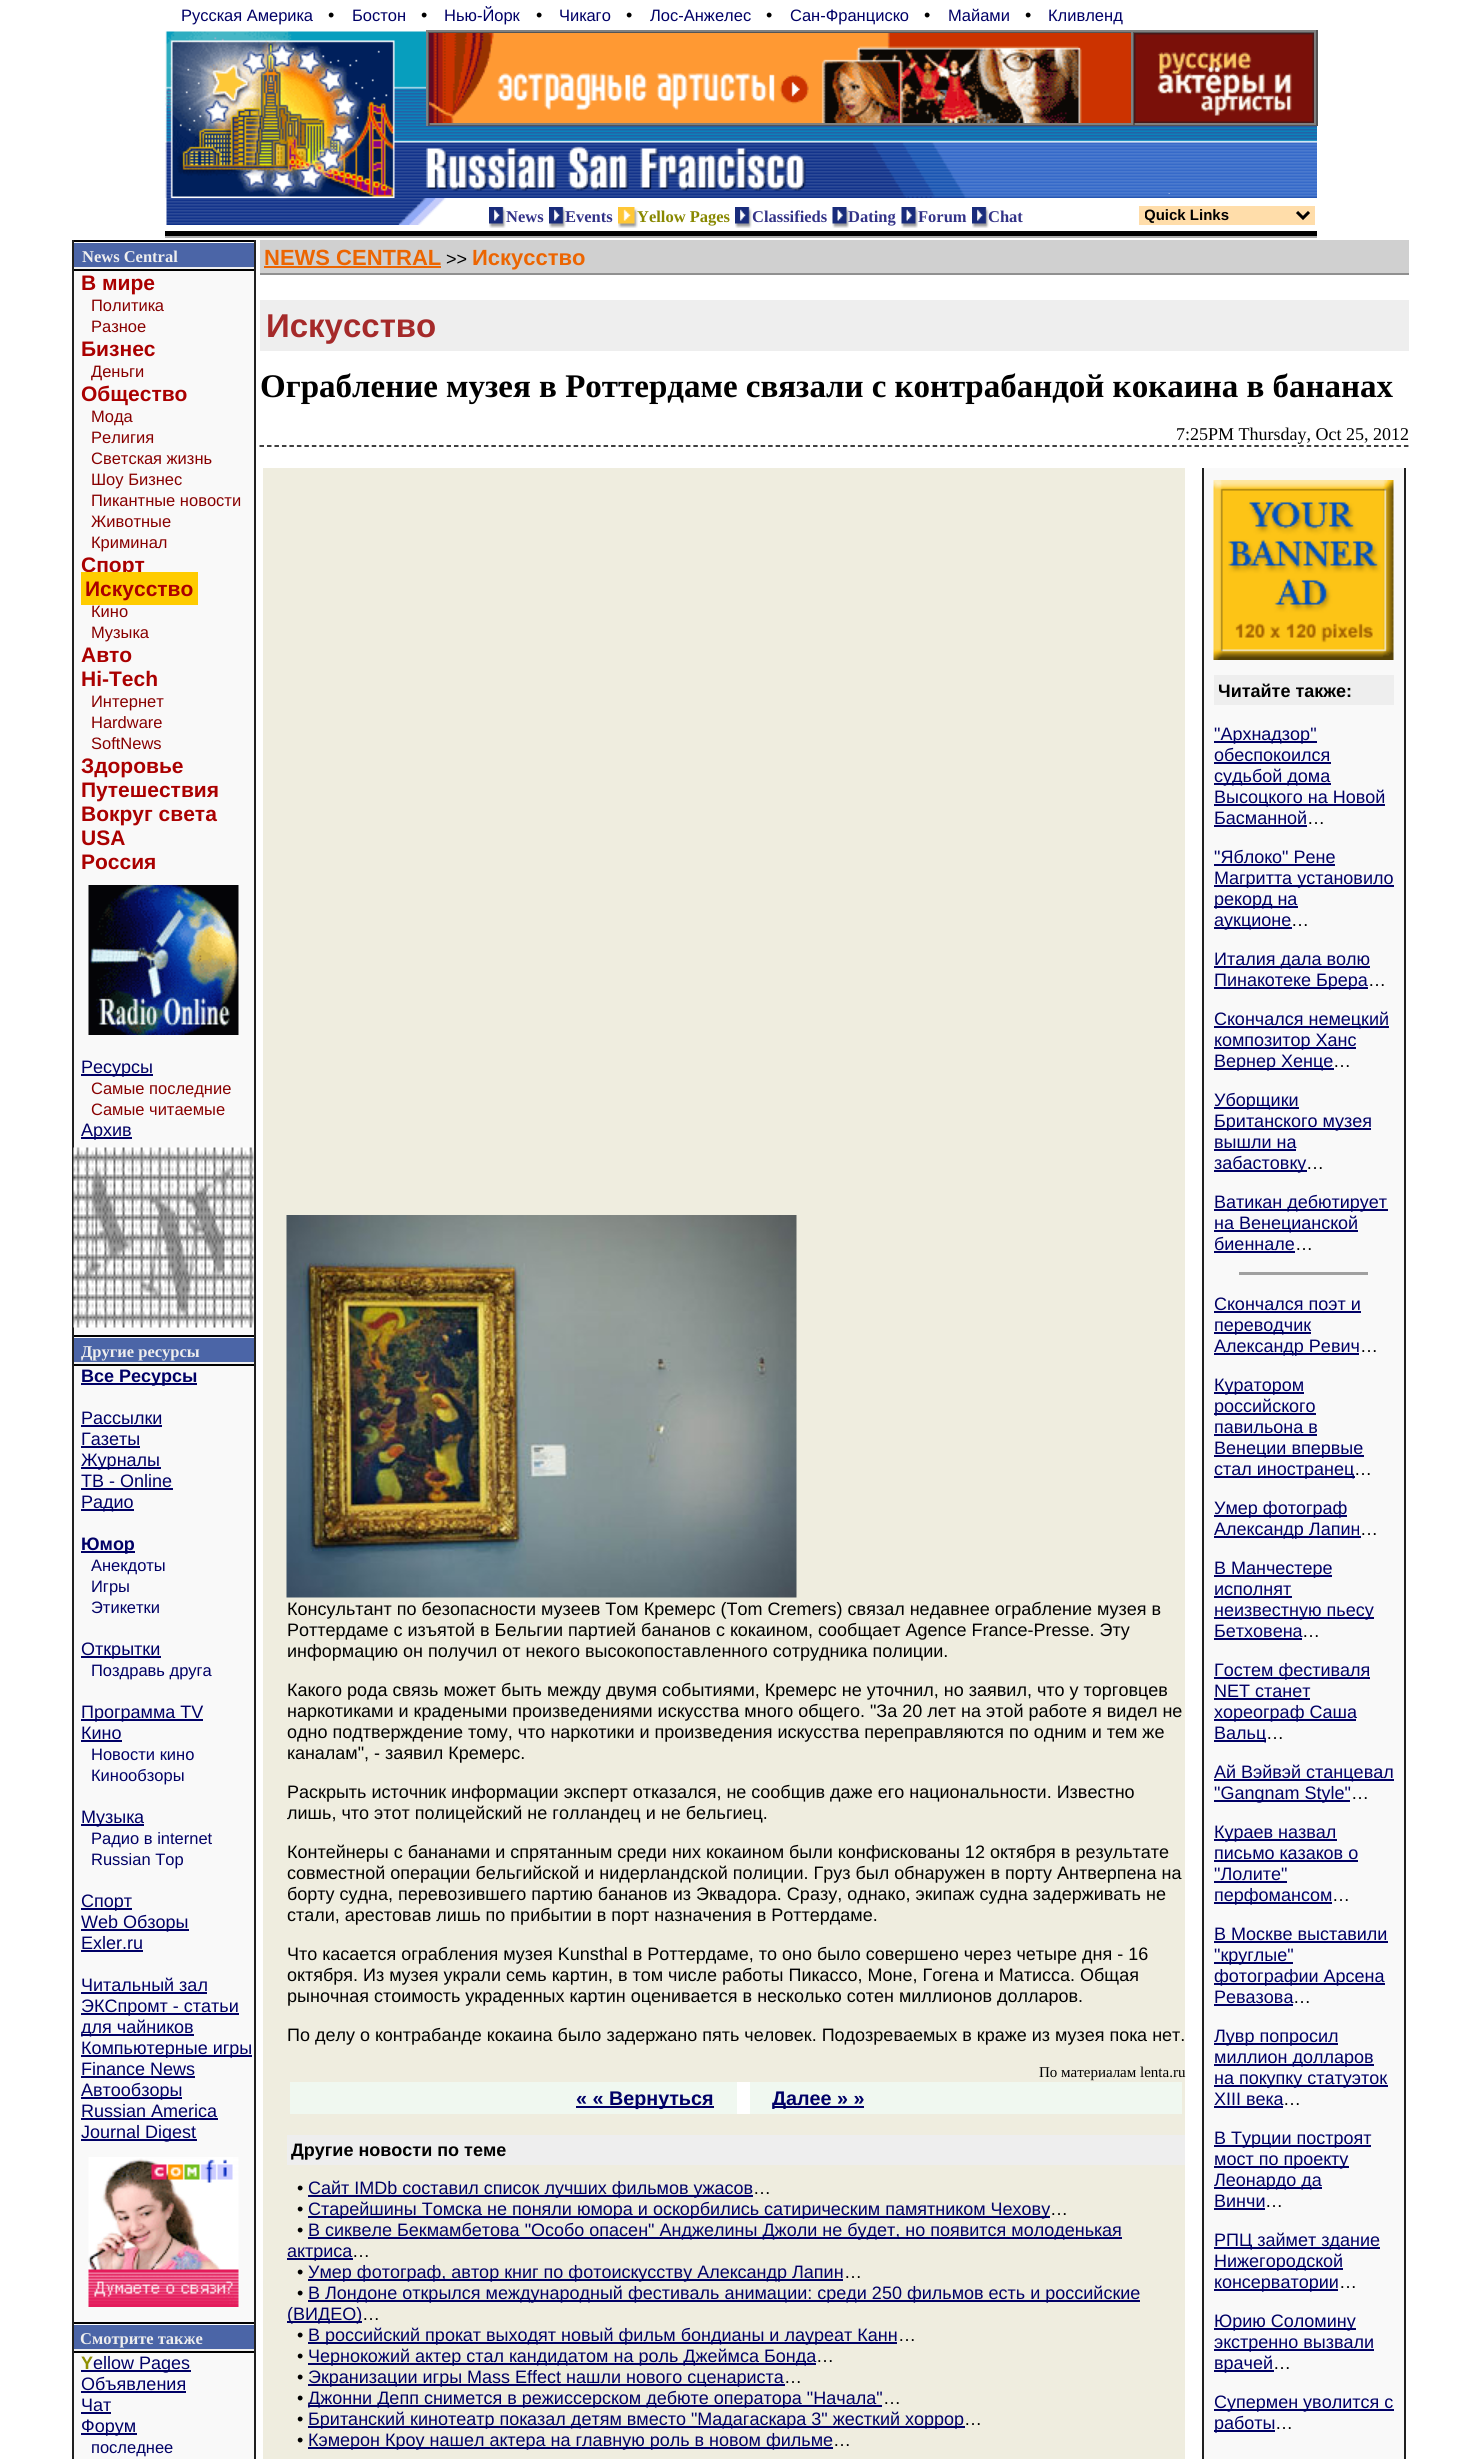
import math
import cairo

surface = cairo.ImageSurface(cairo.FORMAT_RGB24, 1480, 2459)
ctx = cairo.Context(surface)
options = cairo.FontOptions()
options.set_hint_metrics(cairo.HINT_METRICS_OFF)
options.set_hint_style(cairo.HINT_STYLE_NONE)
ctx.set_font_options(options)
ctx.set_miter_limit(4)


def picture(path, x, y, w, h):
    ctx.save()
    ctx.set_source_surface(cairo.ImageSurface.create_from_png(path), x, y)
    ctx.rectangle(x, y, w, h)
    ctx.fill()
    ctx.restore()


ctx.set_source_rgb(1, 1, 1)
ctx.paint()
ctx.set_source_rgb(0.667, 0.667, 0.667)
ctx.rectangle(165, 236, 1152, 2)
ctx.fill()
ctx.select_font_face("Liberation Sans")
ctx.set_font_size(16.5)
ctx.set_source_rgb(0, 0, 0.4)
ctx.move_to(181, 21)
ctx.show_text("Русская Америка")
ctx.set_font_size(18)
ctx.set_source_rgb(0, 0, 0)
ctx.move_to(328, 21)
ctx.show_text("•")
ctx.set_font_size(16.5)
ctx.set_source_rgb(0, 0, 0.4)
ctx.move_to(352, 21)
ctx.show_text("Бостон")
ctx.set_font_size(18)
ctx.set_source_rgb(0, 0, 0)
ctx.move_to(421, 21)
ctx.show_text("•")
ctx.set_font_size(16.5)
ctx.set_source_rgb(0, 0, 0.4)
ctx.move_to(444, 21)
ctx.show_text("Нью-Йорк")
ctx.set_font_size(18)
ctx.set_source_rgb(0, 0, 0)
ctx.move_to(536, 21)
ctx.show_text("•")
ctx.set_font_size(16.5)
ctx.set_source_rgb(0, 0, 0.4)
ctx.move_to(559, 21)
ctx.show_text("Чикаго")
ctx.set_font_size(18)
ctx.set_source_rgb(0, 0, 0)
ctx.move_to(626, 21)
ctx.show_text("•")
ctx.set_font_size(16.5)
ctx.set_source_rgb(0, 0, 0.4)
ctx.move_to(650, 21)
ctx.show_text("Лос-Анжелес")
ctx.set_font_size(18)
ctx.set_source_rgb(0, 0, 0)
ctx.move_to(766, 21)
ctx.show_text("•")
ctx.set_font_size(16.5)
ctx.set_source_rgb(0, 0, 0.4)
ctx.move_to(790, 21)
ctx.show_text("Сан-Франциcко")
ctx.set_font_size(18)
ctx.set_source_rgb(0, 0, 0)
ctx.move_to(924, 21)
ctx.show_text("•")
ctx.set_font_size(16.5)
ctx.set_source_rgb(0, 0, 0.4)
ctx.move_to(948, 21)
ctx.show_text("Майами")
ctx.set_font_size(18)
ctx.set_source_rgb(0, 0, 0)
ctx.move_to(1025, 21)
ctx.show_text("•")
ctx.set_font_size(16.5)
ctx.set_source_rgb(0, 0, 0.4)
ctx.move_to(1048, 21)
ctx.show_text("Кливленд")
picture("img1.png", 165, 31, 261, 167)
ctx.set_source_rgb(0.502, 0.502, 0.502)
ctx.rectangle(426, 30, 891, 2)
ctx.fill()
ctx.set_source_rgb(0.333, 0.333, 0.333)
ctx.rectangle(1316, 30, 2, 96)
ctx.fill()
ctx.rectangle(426, 125, 891, 1)
ctx.fill()
ctx.set_source_rgb(0.502, 0.502, 0.502)
ctx.rectangle(426, 30, 2, 96)
ctx.fill()
ctx.set_source_rgb(0.333, 0.333, 0.333)
ctx.rectangle(428, 32, 888, 1)
ctx.fill()
ctx.set_source_rgb(0.502, 0.502, 0.502)
ctx.rectangle(1131, 32, 2, 93)
ctx.fill()
ctx.rectangle(428, 123, 705, 2)
ctx.fill()
ctx.set_source_rgb(0.333, 0.333, 0.333)
ctx.rectangle(428, 32, 2, 93)
ctx.fill()
picture("img2.png", 429, 33, 702, 90)
ctx.set_source_rgb(0.502, 0.502, 0.502)
ctx.rectangle(1314, 32, 2, 93)
ctx.fill()
ctx.rectangle(1133, 123, 183, 2)
ctx.fill()
ctx.set_source_rgb(0.333, 0.333, 0.333)
ctx.rectangle(1133, 32, 2, 93)
ctx.fill()
picture("img3.png", 1134, 33, 180, 90)
picture("img4.png", 426, 126, 891, 72)
ctx.set_font_size(8)
ctx.set_source_rgb(0.933, 0.933, 0.933)
ctx.move_to(1168, 194)
ctx.show_text(".")
picture("img5.png", 166, 198, 280, 27)
picture("img6.png", 489, 207, 17, 21)
ctx.select_font_face("Liberation Serif", cairo.FONT_SLANT_NORMAL, cairo.FONT_WEIGHT_BOLD)
ctx.set_font_size(16.5)
ctx.set_source_rgb(0.2, 0.2, 0.533)
ctx.move_to(506, 222)
ctx.show_text("News")
picture("img6.png", 549, 207, 17, 21)
ctx.move_to(565, 222)
ctx.show_text("Events")
picture("img7.png", 618, 207, 20, 21)
ctx.set_source_rgb(0.533, 0.533, 0)
ctx.move_to(637, 222)
ctx.show_text("Yellow Pages")
picture("img6.png", 735, 207, 17, 21)
ctx.set_source_rgb(0.2, 0.2, 0.533)
ctx.move_to(752, 222)
ctx.show_text("Classifieds")
picture("img8.png", 832, 207, 17, 21)
ctx.move_to(848, 222)
ctx.show_text("Dating")
picture("img8.png", 901, 207, 17, 21)
ctx.move_to(918, 222)
ctx.show_text("Forum")
picture("img6.png", 972, 207, 17, 21)
ctx.move_to(988, 222)
ctx.show_text("Chat")
ctx.set_source_rgb(1, 0.867, 0.667)
ctx.rectangle(1139, 206, 176, 19)
ctx.fill()
ctx.new_path()
ctx.move_to(1297, 212)
ctx.line_to(1303, 218)
ctx.line_to(1309, 212)
ctx.set_source_rgb(0, 0, 0)
ctx.set_line_width(3)
ctx.stroke()
ctx.save()
ctx.rectangle(1145, 206, 147, 19)
ctx.clip()
ctx.select_font_face("Liberation Sans", cairo.FONT_SLANT_NORMAL, cairo.FONT_WEIGHT_BOLD)
ctx.set_font_size(15)
ctx.move_to(1144, 220)
ctx.show_text("Quick Links")
ctx.restore()
ctx.rectangle(165, 231, 1152, 5)
ctx.fill()
ctx.set_source_rgb(0.973, 0.973, 0.973)
ctx.rectangle(74, 271, 180, 2188)
ctx.fill()
ctx.set_source_rgb(0.125, 0.125, 0.125)
ctx.rectangle(254, 240, 2, 2219)
ctx.fill()
ctx.rectangle(72, 240, 2, 2219)
ctx.fill()
ctx.set_source_rgb(0, 0, 0)
ctx.rectangle(74, 240, 180, 2)
ctx.fill()
ctx.set_source_rgb(0.294, 0.396, 0.655)
ctx.rectangle(74, 243, 180, 24)
ctx.fill()
ctx.set_source_rgb(0.933, 0.933, 0.933)
ctx.move_to(82, 262)
ctx.show_text("News Central")
ctx.set_source_rgb(0.941, 0.941, 0.941)
ctx.rectangle(74, 267, 180, 2)
ctx.fill()
ctx.set_source_rgb(0, 0, 0)
ctx.rectangle(74, 269, 180, 2)
ctx.fill()
ctx.select_font_face("Liberation Sans", cairo.FONT_SLANT_NORMAL, cairo.FONT_WEIGHT_BOLD)
ctx.set_font_size(21)
ctx.set_source_rgb(0.667, 0, 0)
ctx.move_to(81, 290)
ctx.show_text("В мире")
ctx.select_font_face("Liberation Sans")
ctx.set_font_size(16.5)
ctx.set_source_rgb(0.533, 0, 0)
ctx.move_to(91, 311)
ctx.show_text("Политика")
ctx.move_to(91, 332)
ctx.show_text("Разное")
ctx.select_font_face("Liberation Sans", cairo.FONT_SLANT_NORMAL, cairo.FONT_WEIGHT_BOLD)
ctx.set_font_size(21)
ctx.set_source_rgb(0.667, 0, 0)
ctx.move_to(81, 356)
ctx.show_text("Бизнес")
ctx.select_font_face("Liberation Sans")
ctx.set_font_size(16.5)
ctx.set_source_rgb(0.533, 0, 0)
ctx.move_to(91, 377)
ctx.show_text("Деньги")
ctx.select_font_face("Liberation Sans", cairo.FONT_SLANT_NORMAL, cairo.FONT_WEIGHT_BOLD)
ctx.set_font_size(21)
ctx.set_source_rgb(0.667, 0, 0)
ctx.move_to(81, 401)
ctx.show_text("Общество")
ctx.select_font_face("Liberation Sans")
ctx.set_font_size(16.5)
ctx.set_source_rgb(0.533, 0, 0)
ctx.move_to(91, 422)
ctx.show_text("Мода")
ctx.move_to(91, 443)
ctx.show_text("Религия")
ctx.move_to(91, 464)
ctx.show_text("Светская жизнь")
ctx.move_to(91, 485)
ctx.show_text("Шоу Бизнес")
ctx.move_to(91, 506)
ctx.show_text("Пикантные новости")
ctx.move_to(91, 527)
ctx.show_text("Животные")
ctx.move_to(91, 548)
ctx.show_text("Криминал")
ctx.select_font_face("Liberation Sans", cairo.FONT_SLANT_NORMAL, cairo.FONT_WEIGHT_BOLD)
ctx.set_font_size(21)
ctx.set_source_rgb(0.667, 0, 0)
ctx.move_to(81, 572)
ctx.show_text("Спорт")
ctx.set_source_rgb(1, 0.8, 0)
ctx.rectangle(81, 572, 117, 33)
ctx.fill()
ctx.set_source_rgb(0.667, 0, 0)
ctx.move_to(85, 596)
ctx.show_text("Искусство")
ctx.select_font_face("Liberation Sans")
ctx.set_font_size(16.5)
ctx.set_source_rgb(0.533, 0, 0)
ctx.move_to(91, 617)
ctx.show_text("Кино")
ctx.move_to(91, 638)
ctx.show_text("Музыка")
ctx.select_font_face("Liberation Sans", cairo.FONT_SLANT_NORMAL, cairo.FONT_WEIGHT_BOLD)
ctx.set_font_size(21)
ctx.set_source_rgb(0.667, 0, 0)
ctx.move_to(81, 662)
ctx.show_text("Авто")
ctx.move_to(81, 686)
ctx.show_text("Hi-Tech")
ctx.select_font_face("Liberation Sans")
ctx.set_font_size(16.5)
ctx.set_source_rgb(0.533, 0, 0)
ctx.move_to(91, 707)
ctx.show_text("Интернет")
ctx.move_to(91, 728)
ctx.show_text("Hardware")
ctx.move_to(91, 749)
ctx.show_text("SoftNews")
ctx.select_font_face("Liberation Sans", cairo.FONT_SLANT_NORMAL, cairo.FONT_WEIGHT_BOLD)
ctx.set_font_size(21)
ctx.set_source_rgb(0.667, 0, 0)
ctx.move_to(81, 773)
ctx.show_text("Здоровье")
ctx.move_to(81, 797)
ctx.show_text("Путешествия")
ctx.move_to(81, 821)
ctx.show_text("Вокруг света")
ctx.move_to(81, 845)
ctx.show_text("USA")
ctx.move_to(81, 869)
ctx.show_text("Россия")
picture("img9.png", 88, 885, 151, 150)
ctx.set_source_rgb(0, 0, 0.4)
ctx.rectangle(81, 1074, 72, 2)
ctx.fill()
ctx.select_font_face("Liberation Sans")
ctx.set_font_size(18)
ctx.move_to(81, 1073)
ctx.show_text("Ресурсы")
ctx.set_font_size(16.5)
ctx.set_source_rgb(0.533, 0, 0)
ctx.move_to(91, 1094)
ctx.show_text("Самые последние")
ctx.move_to(91, 1115)
ctx.show_text("Самые читаемые")
ctx.set_source_rgb(0, 0, 0.4)
ctx.rectangle(81, 1137, 51, 2)
ctx.fill()
ctx.set_font_size(18)
ctx.move_to(81, 1136)
ctx.show_text("Архив")
picture("img10.png", 73, 1147, 181, 181)
ctx.set_source_rgb(0, 0, 0)
ctx.rectangle(74, 1335, 180, 2)
ctx.fill()
ctx.set_source_rgb(1, 1, 1)
ctx.rectangle(74, 1337, 180, 1)
ctx.fill()
ctx.set_source_rgb(0.294, 0.396, 0.655)
ctx.rectangle(74, 1338, 180, 24)
ctx.fill()
ctx.select_font_face("Liberation Serif", cairo.FONT_SLANT_NORMAL, cairo.FONT_WEIGHT_BOLD)
ctx.set_font_size(16.5)
ctx.set_source_rgb(0.933, 0.933, 0.933)
ctx.move_to(81, 1357)
ctx.show_text("Другие ресурсы")
ctx.set_source_rgb(0.941, 0.941, 0.941)
ctx.rectangle(74, 1362, 180, 2)
ctx.fill()
ctx.set_source_rgb(0, 0, 0)
ctx.rectangle(74, 1364, 180, 2)
ctx.fill()
ctx.set_source_rgb(0, 0, 0.4)
ctx.rectangle(81, 1383, 116, 2)
ctx.fill()
ctx.select_font_face("Liberation Sans", cairo.FONT_SLANT_NORMAL, cairo.FONT_WEIGHT_BOLD)
ctx.set_font_size(18)
ctx.move_to(81, 1382)
ctx.show_text("Все Ресурсы")
ctx.select_font_face("Liberation Sans")
ctx.move_to(81, 1424)
ctx.show_text("Рассылки")
ctx.rectangle(81, 1425, 81, 2)
ctx.fill()
ctx.move_to(81, 1445)
ctx.show_text("Газеты")
ctx.rectangle(81, 1446, 59, 2)
ctx.fill()
ctx.rectangle(81, 1467, 80, 2)
ctx.fill()
ctx.move_to(81, 1466)
ctx.show_text("Журналы")
ctx.move_to(81, 1487)
ctx.show_text("ТВ - Online")
ctx.rectangle(81, 1488, 92, 2)
ctx.fill()
ctx.rectangle(81, 1509, 53, 2)
ctx.fill()
ctx.move_to(81, 1508)
ctx.show_text("Радио")
ctx.rectangle(81, 1551, 54, 2)
ctx.fill()
ctx.select_font_face("Liberation Sans", cairo.FONT_SLANT_NORMAL, cairo.FONT_WEIGHT_BOLD)
ctx.move_to(81, 1550)
ctx.show_text("Юмор")
ctx.select_font_face("Liberation Sans")
ctx.set_font_size(16.5)
ctx.move_to(91, 1571)
ctx.show_text("Анекдоты")
ctx.move_to(91, 1592)
ctx.show_text("Игры")
ctx.move_to(91, 1613)
ctx.show_text("Этикетки")
ctx.rectangle(81, 1656, 80, 2)
ctx.fill()
ctx.set_font_size(18)
ctx.move_to(81, 1655)
ctx.show_text("Открытки")
ctx.set_font_size(16.5)
ctx.move_to(91, 1676)
ctx.show_text("Поздравь друга")
ctx.rectangle(81, 1719, 122, 2)
ctx.fill()
ctx.set_font_size(18)
ctx.move_to(81, 1718)
ctx.show_text("Программа TV")
ctx.move_to(81, 1739)
ctx.show_text("Кино")
ctx.rectangle(81, 1740, 41, 2)
ctx.fill()
ctx.set_font_size(16.5)
ctx.move_to(91, 1760)
ctx.show_text("Новости кино")
ctx.move_to(91, 1781)
ctx.show_text("Кинообзоры")
ctx.rectangle(81, 1824, 63, 2)
ctx.fill()
ctx.set_font_size(18)
ctx.move_to(81, 1823)
ctx.show_text("Музыка")
ctx.set_font_size(16.5)
ctx.move_to(91, 1844)
ctx.show_text("Радио в internet")
ctx.move_to(91, 1865)
ctx.show_text("Russian Top")
ctx.rectangle(81, 1908, 51, 2)
ctx.fill()
ctx.set_font_size(18)
ctx.move_to(81, 1907)
ctx.show_text("Спорт")
ctx.rectangle(81, 1929, 108, 2)
ctx.fill()
ctx.move_to(81, 1928)
ctx.show_text("Web Обзоры")
ctx.move_to(81, 1949)
ctx.show_text("Exler.ru")
ctx.rectangle(81, 1950, 62, 2)
ctx.fill()
ctx.move_to(81, 1991)
ctx.show_text("Читальный зал")
ctx.rectangle(81, 1992, 126, 2)
ctx.fill()
ctx.rectangle(81, 2013, 158, 2)
ctx.fill()
ctx.move_to(81, 2012)
ctx.show_text("ЭКСпромт - статьи")
ctx.rectangle(81, 2034, 113, 2)
ctx.fill()
ctx.move_to(81, 2033)
ctx.show_text("для чайников")
ctx.rectangle(81, 2055, 171, 2)
ctx.fill()
ctx.move_to(81, 2054)
ctx.show_text("Компьютерные игры")
ctx.move_to(81, 2075)
ctx.show_text("Finance News")
ctx.rectangle(81, 2076, 114, 2)
ctx.fill()
ctx.rectangle(81, 2097, 101, 2)
ctx.fill()
ctx.move_to(81, 2096)
ctx.show_text("Автообзоры")
ctx.move_to(81, 2117)
ctx.show_text("Russian America")
ctx.rectangle(81, 2118, 137, 2)
ctx.fill()
ctx.rectangle(81, 2139, 116, 2)
ctx.fill()
ctx.move_to(81, 2138)
ctx.show_text("Journal Digest")
picture("img11.png", 88, 2157, 151, 150)
ctx.set_source_rgb(0, 0, 0)
ctx.rectangle(74, 2322, 180, 2)
ctx.fill()
ctx.set_source_rgb(1, 1, 1)
ctx.rectangle(74, 2324, 180, 1)
ctx.fill()
ctx.set_source_rgb(0.294, 0.396, 0.655)
ctx.rectangle(74, 2325, 180, 24)
ctx.fill()
ctx.select_font_face("Liberation Serif", cairo.FONT_SLANT_NORMAL, cairo.FONT_WEIGHT_BOLD)
ctx.set_font_size(16.5)
ctx.set_source_rgb(0.933, 0.933, 0.933)
ctx.move_to(80, 2344)
ctx.show_text("Смотрите также")
ctx.set_source_rgb(0.941, 0.941, 0.941)
ctx.rectangle(74, 2349, 180, 2)
ctx.fill()
ctx.set_source_rgb(0, 0, 0)
ctx.rectangle(74, 2351, 180, 2)
ctx.fill()
ctx.select_font_face("Liberation Sans", cairo.FONT_SLANT_NORMAL, cairo.FONT_WEIGHT_BOLD)
ctx.set_font_size(18)
ctx.set_source_rgb(0.561, 0.561, 0)
ctx.move_to(81, 2369)
ctx.show_text("Y")
ctx.set_source_rgb(0, 0, 0.4)
ctx.rectangle(81, 2370, 110, 2)
ctx.fill()
ctx.select_font_face("Liberation Sans")
ctx.move_to(93, 2369)
ctx.show_text("ellow Pages")
ctx.move_to(81, 2390)
ctx.show_text("Объявления")
ctx.rectangle(81, 2391, 105, 2)
ctx.fill()
ctx.move_to(81, 2411)
ctx.show_text("Чат")
ctx.rectangle(81, 2412, 30, 2)
ctx.fill()
ctx.rectangle(81, 2433, 56, 2)
ctx.fill()
ctx.move_to(81, 2432)
ctx.show_text("Форум")
ctx.set_font_size(16.5)
ctx.move_to(91, 2453)
ctx.show_text("последнее")
ctx.set_source_rgb(0.565, 0.565, 0.565)
ctx.rectangle(260, 273, 1149, 2)
ctx.fill()
ctx.set_source_rgb(0.816, 0.816, 0.816)
ctx.rectangle(260, 240, 1149, 33)
ctx.fill()
ctx.select_font_face("Liberation Sans", cairo.FONT_SLANT_NORMAL, cairo.FONT_WEIGHT_BOLD)
ctx.set_font_size(22)
ctx.set_source_rgb(0.922, 0.396, 0.004)
ctx.move_to(264, 265)
ctx.show_text("NEWS CENTRAL")
ctx.rectangle(264, 266, 177, 2)
ctx.fill()
ctx.select_font_face("Liberation Sans")
ctx.set_font_size(18)
ctx.set_source_rgb(0, 0, 0)
ctx.move_to(446, 265)
ctx.show_text(">>")
ctx.select_font_face("Liberation Sans", cairo.FONT_SLANT_NORMAL, cairo.FONT_WEIGHT_BOLD)
ctx.set_font_size(22)
ctx.set_source_rgb(0.922, 0.396, 0.004)
ctx.move_to(472, 265)
ctx.show_text("Искусство")
ctx.set_source_rgb(0.933, 0.933, 0.933)
ctx.rectangle(260, 300, 1149, 51)
ctx.fill()
ctx.set_font_size(33)
ctx.set_source_rgb(0.647, 0.165, 0.165)
ctx.move_to(266, 337)
ctx.show_text("Искусство")
ctx.select_font_face("Liberation Serif", cairo.FONT_SLANT_NORMAL, cairo.FONT_WEIGHT_BOLD)
ctx.set_source_rgb(0, 0, 0)
ctx.move_to(260, 397)
ctx.show_text("Ограбление музея в Роттердаме связали с контрабандой кокаина в бананах")
ctx.new_path()
ctx.move_to(259.5, 446)
ctx.line_to(1408.5, 446)
ctx.set_line_width(1.5)
ctx.set_dash([4.5, 2.98])
ctx.stroke()
ctx.select_font_face("Liberation Serif")
ctx.set_font_size(18)
ctx.move_to(1176, 440)
ctx.show_text("7:25PM Thursday, Oct 25, 2012")
ctx.set_source_rgb(0.937, 0.929, 0.875)
ctx.rectangle(263, 468, 922, 1991)
ctx.fill()
picture("img12.png", 286, 1215, 511, 383)
ctx.select_font_face("Liberation Sans")
ctx.set_source_rgb(0, 0, 0)
ctx.move_to(287, 1615)
ctx.show_text("Консультант по безопасности музеев Том Кремерс (Tom Cremers) связал недавнее ограбление музея в")
ctx.move_to(287, 1636)
ctx.show_text("Роттердаме с изъятой в Бельгии партией бананов с кокаином, сообщает Agence France-Presse. Эту")
ctx.move_to(287, 1657)
ctx.show_text("информацию он получил от некого высокопоставленного сотрудника полиции.")
ctx.move_to(287, 1696)
ctx.show_text("Какого рода связь может быть между двумя событиями, Кремерс не уточнил, но заявил, что у торговцев")
ctx.move_to(287, 1717)
ctx.show_text("наркотиками и крадеными произведениями искусства много общего. \"За 20 лет на этой работе я видел не")
ctx.move_to(287, 1738)
ctx.show_text("одно подтверждение тому, что наркотики и произведения искусства переправляются по одним и тем же")
ctx.move_to(287, 1759)
ctx.show_text("каналам\", - заявил Кремерс.")
ctx.move_to(287, 1798)
ctx.show_text("Раскрыть источник информации эксперт отказался, не сообщив даже его национальности. Известно")
ctx.move_to(287, 1819)
ctx.show_text("лишь, что этот полицейский не голландец и не бельгиец.")
ctx.move_to(287, 1858)
ctx.show_text("Контейнеры с бананами и спрятанным среди них кокаином были конфискованы 12 октября в результате")
ctx.move_to(287, 1879)
ctx.show_text("совместной операции бельгийской и нидерландской полиции. Груз был обнаружен в порту Антверпена на")
ctx.move_to(287, 1900)
ctx.show_text("борту судна, перевозившего партию бананов из Эквадора. Сразу, однако, экипаж судна задерживать не")
ctx.move_to(287, 1921)
ctx.show_text("стали, арестовав лишь по прибытии в порт назначения в Роттердаме.")
ctx.move_to(287, 1960)
ctx.show_text("Что касается ограбления музея Kunsthal в Роттердаме, то оно было совершено через четыре дня - 16")
ctx.move_to(287, 1981)
ctx.show_text("октября. Из музея украли семь картин, в том числе работы Пикассо, Моне, Гогена и Матисса. Общая")
ctx.move_to(287, 2002)
ctx.show_text("рыночная стоимость украденных картин оценивается в несколько сотен миллионов долларов.")
ctx.move_to(287, 2041)
ctx.show_text("По делу о контрабанде кокаина было задержано пять человек. Подозреваемых в краже из музея пока нет.")
ctx.select_font_face("Liberation Serif")
ctx.set_font_size(15)
ctx.move_to(1039, 2077)
ctx.show_text("По материалам lenta.ru")
ctx.set_source_rgb(0.941, 0.969, 0.941)
ctx.rectangle(290, 2082, 892, 32)
ctx.fill()
ctx.set_source_rgb(0, 0, 0.4)
ctx.rectangle(576, 2106, 138, 2)
ctx.fill()
ctx.select_font_face("Liberation Sans", cairo.FONT_SLANT_NORMAL, cairo.FONT_WEIGHT_BOLD)
ctx.set_font_size(19.75)
ctx.move_to(576, 2105)
ctx.show_text("« « Вернуться")
ctx.set_source_rgb(1, 1, 1)
ctx.rectangle(737, 2082, 13, 32)
ctx.fill()
ctx.set_source_rgb(0, 0, 0.4)
ctx.rectangle(773, 2106, 91, 2)
ctx.fill()
ctx.move_to(772, 2105)
ctx.show_text("Далее » »")
ctx.set_source_rgb(0.933, 0.933, 0.933)
ctx.rectangle(287, 2135, 898, 30)
ctx.fill()
ctx.set_font_size(18)
ctx.set_source_rgb(0, 0, 0)
ctx.move_to(291, 2156)
ctx.show_text("Другие новости по теме")
ctx.select_font_face("Liberation Sans")
ctx.move_to(297, 2194)
ctx.show_text("•")
ctx.set_source_rgb(0, 0, 0.4)
ctx.rectangle(308, 2195, 445, 2)
ctx.fill()
ctx.move_to(308, 2194)
ctx.show_text("Сайт IMDb составил список лучших фильмов ужасов")
ctx.set_source_rgb(0, 0, 0)
ctx.move_to(753, 2194)
ctx.show_text("…")
ctx.move_to(297, 2215)
ctx.show_text("•")
ctx.set_source_rgb(0, 0, 0.4)
ctx.rectangle(308, 2216, 742, 2)
ctx.fill()
ctx.move_to(308, 2215)
ctx.show_text("Старейшины Томска не поняли юмора и оскорбились сатирическим памятником Чехову")
ctx.set_source_rgb(0, 0, 0)
ctx.move_to(1050, 2215)
ctx.show_text("…")
ctx.move_to(297, 2236)
ctx.show_text("•")
ctx.set_source_rgb(0, 0, 0.4)
ctx.rectangle(308, 2237, 814, 2)
ctx.fill()
ctx.move_to(308, 2236)
ctx.show_text("В сиквеле Бекмамбетова \"Особо опасен\" Анджелины Джоли не будет, но появится молоденькая")
ctx.rectangle(287, 2258, 66, 2)
ctx.fill()
ctx.move_to(287, 2257)
ctx.show_text("актриса")
ctx.set_source_rgb(0, 0, 0)
ctx.move_to(352, 2257)
ctx.show_text("…")
ctx.move_to(297, 2278)
ctx.show_text("•")
ctx.set_source_rgb(0, 0, 0.4)
ctx.rectangle(308, 2279, 535, 2)
ctx.fill()
ctx.move_to(308, 2278)
ctx.show_text("Умер фотограф, автор книг по фотоискусству Александр Лапин")
ctx.set_source_rgb(0, 0, 0)
ctx.move_to(844, 2278)
ctx.show_text("…")
ctx.move_to(297, 2299)
ctx.show_text("•")
ctx.set_source_rgb(0, 0, 0.4)
ctx.rectangle(308, 2300, 832, 2)
ctx.fill()
ctx.move_to(308, 2299)
ctx.show_text("В Лондоне открылся международный фестиваль анимации: среди 250 фильмов есть и российские")
ctx.rectangle(287, 2321, 75, 2)
ctx.fill()
ctx.move_to(287, 2320)
ctx.show_text("(ВИДЕО)")
ctx.set_source_rgb(0, 0, 0)
ctx.move_to(362, 2320)
ctx.show_text("…")
ctx.move_to(297, 2341)
ctx.show_text("•")
ctx.set_source_rgb(0, 0, 0.4)
ctx.rectangle(308, 2342, 589, 2)
ctx.fill()
ctx.move_to(308, 2341)
ctx.show_text("В российский прокат выходят новый фильм бондианы и лауреат Канн")
ctx.set_source_rgb(0, 0, 0)
ctx.move_to(898, 2341)
ctx.show_text("…")
ctx.move_to(297, 2362)
ctx.show_text("•")
ctx.set_source_rgb(0, 0, 0.4)
ctx.rectangle(308, 2363, 508, 2)
ctx.fill()
ctx.move_to(308, 2362)
ctx.show_text("Чернокожий актер стал кандидатом на роль Джеймса Бонда")
ctx.set_source_rgb(0, 0, 0)
ctx.move_to(816, 2362)
ctx.show_text("…")
ctx.move_to(297, 2383)
ctx.show_text("•")
ctx.set_source_rgb(0, 0, 0.4)
ctx.rectangle(308, 2384, 477, 2)
ctx.fill()
ctx.move_to(308, 2383)
ctx.show_text("Экранизации игры Mass Effect нашли нового сценариста")
ctx.set_source_rgb(0, 0, 0)
ctx.move_to(784, 2383)
ctx.show_text("…")
ctx.move_to(297, 2404)
ctx.show_text("•")
ctx.set_source_rgb(0, 0, 0.4)
ctx.rectangle(308, 2405, 574, 2)
ctx.fill()
ctx.move_to(308, 2404)
ctx.show_text("Джонни Депп снимется в режиссерском дебюте оператора \"Начала\"")
ctx.set_source_rgb(0, 0, 0)
ctx.move_to(883, 2404)
ctx.show_text("…")
ctx.move_to(297, 2425)
ctx.show_text("•")
ctx.set_source_rgb(0, 0, 0.4)
ctx.rectangle(308, 2426, 657, 2)
ctx.fill()
ctx.move_to(308, 2425)
ctx.show_text("Британский кинотеатр показал детям вместо \"Мадагаскара 3\" жесткий хоррор")
ctx.set_source_rgb(0, 0, 0)
ctx.move_to(964, 2425)
ctx.show_text("…")
ctx.move_to(297, 2446)
ctx.show_text("•")
ctx.set_source_rgb(0, 0, 0.4)
ctx.rectangle(308, 2447, 525, 2)
ctx.fill()
ctx.move_to(308, 2446)
ctx.show_text("Кэмерон Кроу нашел актера на главную роль в новом фильме")
ctx.set_source_rgb(0, 0, 0)
ctx.move_to(833, 2446)
ctx.show_text("…")
ctx.set_source_rgb(0.973, 0.973, 0.973)
ctx.rectangle(1204, 468, 200, 1991)
ctx.fill()
ctx.set_source_rgb(0.125, 0.125, 0.125)
ctx.rectangle(1404, 468, 2, 1991)
ctx.fill()
ctx.rectangle(1202, 468, 2, 1991)
ctx.fill()
picture("img13.png", 1213, 480, 181, 180)
ctx.set_source_rgb(0.933, 0.933, 0.933)
ctx.rectangle(1214, 675, 180, 30)
ctx.fill()
ctx.select_font_face("Liberation Sans", cairo.FONT_SLANT_NORMAL, cairo.FONT_WEIGHT_BOLD)
ctx.set_source_rgb(0, 0, 0)
ctx.move_to(1218, 697)
ctx.show_text("Читайте также:")
ctx.set_source_rgb(0, 0, 0.4)
ctx.rectangle(1214, 741, 103, 2)
ctx.fill()
ctx.select_font_face("Liberation Sans")
ctx.move_to(1214, 740)
ctx.show_text("\"Архнадзор\"")
ctx.move_to(1214, 761)
ctx.show_text("обеспокоился")
ctx.rectangle(1214, 762, 117, 2)
ctx.fill()
ctx.rectangle(1214, 783, 117, 2)
ctx.fill()
ctx.move_to(1214, 782)
ctx.show_text("судьбой дома")
ctx.rectangle(1214, 804, 171, 2)
ctx.fill()
ctx.move_to(1214, 803)
ctx.show_text("Высоцкого на Новой")
ctx.move_to(1214, 824)
ctx.show_text("Басманной")
ctx.rectangle(1214, 825, 93, 2)
ctx.fill()
ctx.set_source_rgb(0, 0, 0)
ctx.move_to(1307, 824)
ctx.show_text("…")
ctx.set_source_rgb(0, 0, 0.4)
ctx.move_to(1214, 863)
ctx.show_text("\"Яблоко\" Рене")
ctx.rectangle(1214, 864, 121, 2)
ctx.fill()
ctx.rectangle(1214, 885, 180, 2)
ctx.fill()
ctx.move_to(1214, 884)
ctx.show_text("Магритта установило")
ctx.rectangle(1214, 906, 84, 2)
ctx.fill()
ctx.move_to(1214, 905)
ctx.show_text("рекорд на")
ctx.rectangle(1214, 927, 78, 2)
ctx.fill()
ctx.move_to(1214, 926)
ctx.show_text("аукционе")
ctx.set_source_rgb(0, 0, 0)
ctx.move_to(1291, 926)
ctx.show_text("…")
ctx.set_source_rgb(0, 0, 0.4)
ctx.rectangle(1214, 966, 156, 2)
ctx.fill()
ctx.move_to(1214, 965)
ctx.show_text("Италия дала волю")
ctx.rectangle(1214, 987, 154, 2)
ctx.fill()
ctx.move_to(1214, 986)
ctx.show_text("Пинакотеке Брера")
ctx.set_source_rgb(0, 0, 0)
ctx.move_to(1368, 986)
ctx.show_text("…")
ctx.set_source_rgb(0, 0, 0.4)
ctx.rectangle(1214, 1026, 175, 2)
ctx.fill()
ctx.move_to(1214, 1025)
ctx.show_text("Скончался немецкий")
ctx.rectangle(1214, 1047, 142, 2)
ctx.fill()
ctx.move_to(1214, 1046)
ctx.show_text("композитор Ханс")
ctx.rectangle(1214, 1068, 120, 2)
ctx.fill()
ctx.move_to(1214, 1067)
ctx.show_text("Вернер Хенце")
ctx.set_source_rgb(0, 0, 0)
ctx.move_to(1333, 1067)
ctx.show_text("…")
ctx.set_source_rgb(0, 0, 0.4)
ctx.rectangle(1214, 1107, 85, 2)
ctx.fill()
ctx.move_to(1214, 1106)
ctx.show_text("Уборщики")
ctx.rectangle(1214, 1128, 157, 2)
ctx.fill()
ctx.move_to(1214, 1127)
ctx.show_text("Британского музея")
ctx.move_to(1214, 1148)
ctx.show_text("вышли на")
ctx.rectangle(1214, 1149, 82, 2)
ctx.fill()
ctx.rectangle(1214, 1170, 93, 2)
ctx.fill()
ctx.move_to(1214, 1169)
ctx.show_text("забастовку")
ctx.set_source_rgb(0, 0, 0)
ctx.move_to(1306, 1169)
ctx.show_text("…")
ctx.set_source_rgb(0, 0, 0.4)
ctx.rectangle(1214, 1209, 174, 2)
ctx.fill()
ctx.move_to(1214, 1208)
ctx.show_text("Ватикан дебютирует")
ctx.rectangle(1214, 1230, 144, 2)
ctx.fill()
ctx.move_to(1214, 1229)
ctx.show_text("на Венецианской")
ctx.move_to(1214, 1250)
ctx.show_text("биеннале")
ctx.rectangle(1214, 1251, 81, 2)
ctx.fill()
ctx.set_source_rgb(0, 0, 0)
ctx.move_to(1295, 1250)
ctx.show_text("…")
ctx.set_source_rgb(0.627, 0.627, 0.627)
ctx.rectangle(1239, 1272, 129, 3)
ctx.fill()
ctx.set_source_rgb(0, 0, 0.4)
ctx.move_to(1214, 1310)
ctx.show_text("Скончался поэт и")
ctx.rectangle(1214, 1311, 147, 2)
ctx.fill()
ctx.rectangle(1214, 1332, 97, 2)
ctx.fill()
ctx.move_to(1214, 1331)
ctx.show_text("переводчик")
ctx.rectangle(1214, 1353, 145, 2)
ctx.fill()
ctx.move_to(1214, 1352)
ctx.show_text("Александр Ревич")
ctx.set_source_rgb(0, 0, 0)
ctx.move_to(1360, 1352)
ctx.show_text("…")
ctx.set_source_rgb(0, 0, 0.4)
ctx.rectangle(1214, 1392, 90, 2)
ctx.fill()
ctx.move_to(1214, 1391)
ctx.show_text("Куратором")
ctx.rectangle(1214, 1413, 102, 2)
ctx.fill()
ctx.move_to(1214, 1412)
ctx.show_text("российского")
ctx.move_to(1214, 1433)
ctx.show_text("павильона в")
ctx.rectangle(1214, 1434, 103, 2)
ctx.fill()
ctx.rectangle(1214, 1455, 150, 2)
ctx.fill()
ctx.move_to(1214, 1454)
ctx.show_text("Венеции впервые")
ctx.rectangle(1214, 1476, 141, 2)
ctx.fill()
ctx.move_to(1214, 1475)
ctx.show_text("стал иностранец")
ctx.set_source_rgb(0, 0, 0)
ctx.move_to(1354, 1475)
ctx.show_text("…")
ctx.set_source_rgb(0, 0, 0.4)
ctx.rectangle(1214, 1515, 133, 2)
ctx.fill()
ctx.move_to(1214, 1514)
ctx.show_text("Умер фотограф")
ctx.rectangle(1214, 1536, 147, 2)
ctx.fill()
ctx.move_to(1214, 1535)
ctx.show_text("Александр Лапин")
ctx.set_source_rgb(0, 0, 0)
ctx.move_to(1360, 1535)
ctx.show_text("…")
ctx.set_source_rgb(0, 0, 0.4)
ctx.rectangle(1214, 1575, 118, 2)
ctx.fill()
ctx.move_to(1214, 1574)
ctx.show_text("В Манчестере")
ctx.move_to(1214, 1595)
ctx.show_text("исполнят")
ctx.rectangle(1214, 1596, 78, 2)
ctx.fill()
ctx.rectangle(1214, 1617, 160, 2)
ctx.fill()
ctx.move_to(1214, 1616)
ctx.show_text("неизвестную пьесу")
ctx.move_to(1214, 1637)
ctx.show_text("Бетховена")
ctx.rectangle(1214, 1638, 88, 2)
ctx.fill()
ctx.set_source_rgb(0, 0, 0)
ctx.move_to(1302, 1637)
ctx.show_text("…")
ctx.set_source_rgb(0, 0, 0.4)
ctx.rectangle(1214, 1677, 156, 2)
ctx.fill()
ctx.move_to(1214, 1676)
ctx.show_text("Гостем фестиваля")
ctx.move_to(1214, 1697)
ctx.show_text("NET станет")
ctx.rectangle(1214, 1698, 96, 2)
ctx.fill()
ctx.rectangle(1214, 1719, 142, 2)
ctx.fill()
ctx.move_to(1214, 1718)
ctx.show_text("хореограф Саша")
ctx.rectangle(1214, 1740, 52, 2)
ctx.fill()
ctx.move_to(1214, 1739)
ctx.show_text("Вальц")
ctx.set_source_rgb(0, 0, 0)
ctx.move_to(1266, 1739)
ctx.show_text("…")
ctx.set_source_rgb(0, 0, 0.4)
ctx.rectangle(1214, 1779, 180, 2)
ctx.fill()
ctx.move_to(1214, 1778)
ctx.show_text("Ай Вэйвэй станцевал")
ctx.rectangle(1214, 1800, 136, 2)
ctx.fill()
ctx.move_to(1214, 1799)
ctx.show_text("\"Gangnam Style\"")
ctx.set_source_rgb(0, 0, 0)
ctx.move_to(1351, 1799)
ctx.show_text("…")
ctx.set_source_rgb(0, 0, 0.4)
ctx.rectangle(1214, 1839, 123, 2)
ctx.fill()
ctx.move_to(1214, 1838)
ctx.show_text("Кураев назвал")
ctx.move_to(1214, 1859)
ctx.show_text("письмо казаков о")
ctx.rectangle(1214, 1860, 144, 2)
ctx.fill()
ctx.move_to(1214, 1880)
ctx.show_text("\"Лолите\"")
ctx.rectangle(1214, 1881, 73, 2)
ctx.fill()
ctx.rectangle(1214, 1902, 118, 2)
ctx.fill()
ctx.move_to(1214, 1901)
ctx.show_text("перфомансом")
ctx.set_source_rgb(0, 0, 0)
ctx.move_to(1332, 1901)
ctx.show_text("…")
ctx.set_source_rgb(0, 0, 0.4)
ctx.move_to(1214, 1940)
ctx.show_text("В Москве выставили")
ctx.rectangle(1214, 1941, 174, 2)
ctx.fill()
ctx.rectangle(1214, 1962, 79, 2)
ctx.fill()
ctx.move_to(1214, 1961)
ctx.show_text("\"круглые\"")
ctx.rectangle(1214, 1983, 171, 2)
ctx.fill()
ctx.move_to(1214, 1982)
ctx.show_text("фотографии Арсена")
ctx.move_to(1214, 2003)
ctx.show_text("Ревазова")
ctx.rectangle(1214, 2004, 79, 2)
ctx.fill()
ctx.set_source_rgb(0, 0, 0)
ctx.move_to(1293, 2003)
ctx.show_text("…")
ctx.set_source_rgb(0, 0, 0.4)
ctx.rectangle(1214, 2043, 124, 2)
ctx.fill()
ctx.move_to(1214, 2042)
ctx.show_text("Лувр попросил")
ctx.rectangle(1214, 2064, 160, 2)
ctx.fill()
ctx.move_to(1214, 2063)
ctx.show_text("миллион долларов")
ctx.rectangle(1214, 2085, 174, 2)
ctx.fill()
ctx.move_to(1214, 2084)
ctx.show_text("на покупку статуэток")
ctx.move_to(1214, 2105)
ctx.show_text("XIII века")
ctx.rectangle(1214, 2106, 69, 2)
ctx.fill()
ctx.set_source_rgb(0, 0, 0)
ctx.move_to(1283, 2105)
ctx.show_text("…")
ctx.set_source_rgb(0, 0, 0.4)
ctx.rectangle(1214, 2145, 157, 2)
ctx.fill()
ctx.move_to(1214, 2144)
ctx.show_text("В Турции построят")
ctx.rectangle(1214, 2166, 135, 2)
ctx.fill()
ctx.move_to(1214, 2165)
ctx.show_text("мост по проекту")
ctx.rectangle(1214, 2187, 108, 2)
ctx.fill()
ctx.move_to(1214, 2186)
ctx.show_text("Леонардо да")
ctx.move_to(1214, 2207)
ctx.show_text("Винчи")
ctx.rectangle(1214, 2208, 51, 2)
ctx.fill()
ctx.set_source_rgb(0, 0, 0)
ctx.move_to(1265, 2207)
ctx.show_text("…")
ctx.set_source_rgb(0, 0, 0.4)
ctx.rectangle(1214, 2247, 166, 2)
ctx.fill()
ctx.move_to(1214, 2246)
ctx.show_text("РПЦ займет здание")
ctx.rectangle(1214, 2268, 129, 2)
ctx.fill()
ctx.move_to(1214, 2267)
ctx.show_text("Нижегородской")
ctx.rectangle(1214, 2289, 124, 2)
ctx.fill()
ctx.move_to(1214, 2288)
ctx.show_text("консерватории")
ctx.set_source_rgb(0, 0, 0)
ctx.move_to(1339, 2288)
ctx.show_text("…")
ctx.set_source_rgb(0, 0, 0.4)
ctx.rectangle(1214, 2328, 142, 2)
ctx.fill()
ctx.move_to(1214, 2327)
ctx.show_text("Юрию Соломину")
ctx.rectangle(1214, 2349, 160, 2)
ctx.fill()
ctx.move_to(1214, 2348)
ctx.show_text("экстренно вызвали")
ctx.rectangle(1214, 2370, 60, 2)
ctx.fill()
ctx.move_to(1214, 2369)
ctx.show_text("врачей")
ctx.set_source_rgb(0, 0, 0)
ctx.move_to(1273, 2369)
ctx.show_text("…")
ctx.set_source_rgb(0, 0, 0.4)
ctx.rectangle(1214, 2409, 180, 2)
ctx.fill()
ctx.move_to(1214, 2408)
ctx.show_text("Супермен уволится с")
ctx.rectangle(1214, 2430, 61, 2)
ctx.fill()
ctx.move_to(1214, 2429)
ctx.show_text("работы")
ctx.set_source_rgb(0, 0, 0)
ctx.move_to(1275, 2429)
ctx.show_text("…")
surface.write_to_png("page.png")
